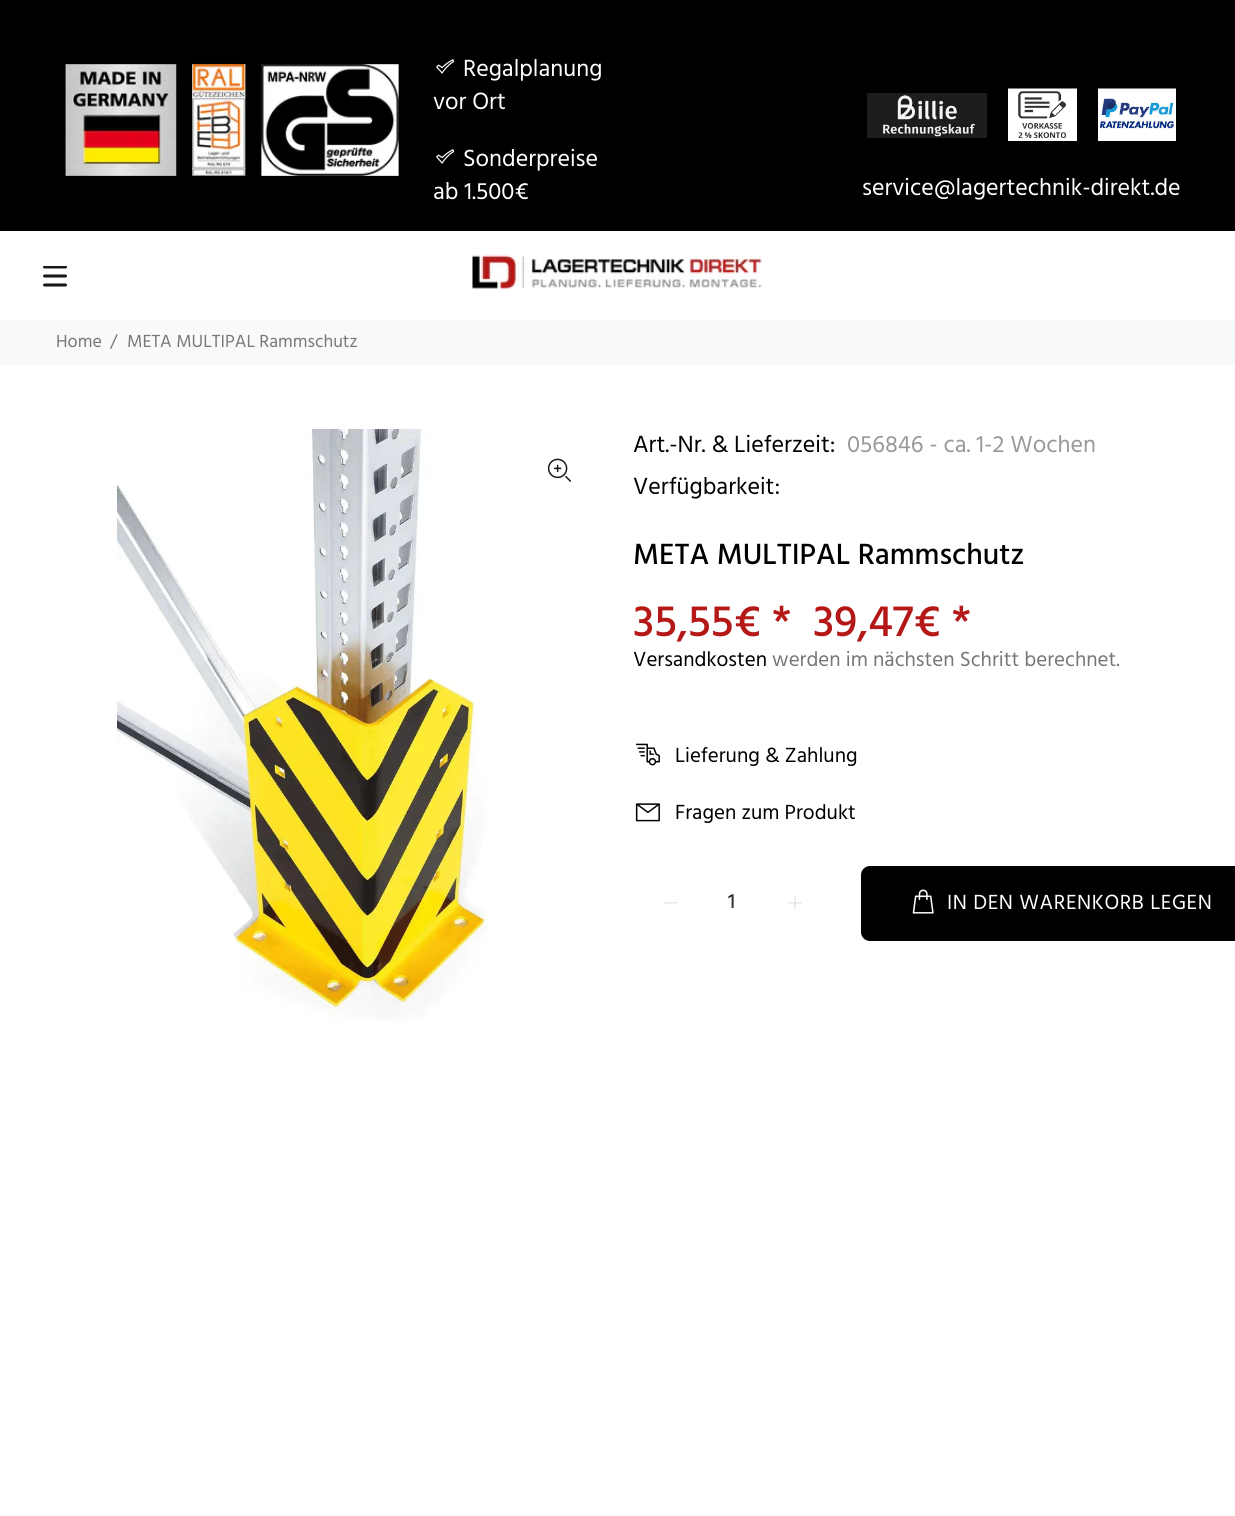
import math
import cairo

surface = cairo.ImageSurface(cairo.FORMAT_RGB24, 1235, 1516)
ctx = cairo.Context(surface)
options = cairo.FontOptions()
options.set_hint_metrics(cairo.HINT_METRICS_OFF)
options.set_hint_style(cairo.HINT_STYLE_NONE)
ctx.set_font_options(options)
ctx.set_miter_limit(4)


def spaced_text(x, y, s, letter, word):
    ctx.move_to(x, y)
    for ch in s:
        ctx.show_text(ch)
        ctx.rel_move_to(letter + word * (ch == ' '), 0)


def round_rect(x, y, w, h, r):
    ctx.new_sub_path()
    for i, (u, v) in enumerate([(x + w - r, y + h - r), (x + r, y + h - r), (x + r, y + r), (x + w - r, y + r)]):
        ctx.arc(u, v, r, i * math.pi / 2, (i + 1) * math.pi / 2)
    ctx.close_path()


def picture(path, x, y, w, h):
    ctx.save()
    ctx.set_source_surface(cairo.ImageSurface.create_from_png(path), x, y)
    ctx.rectangle(x, y, w, h)
    ctx.fill()
    ctx.restore()


ctx.set_source_rgb(1, 1, 1)
ctx.paint()
ctx.set_source_rgb(0, 0, 0)
ctx.rectangle(0, 0, 1235, 231)
ctx.fill()
picture("img1.png", 65, 62, 334, 115)
picture("img2.png", 436, 59, 19, 15)
ctx.select_font_face("Hind")
ctx.set_font_size(24)
ctx.set_source_rgb(1, 1, 1)
ctx.move_to(463, 76)
ctx.show_text("Regalplanung")
ctx.move_to(433, 109)
ctx.show_text("vor Ort")
picture("img2.png", 436, 149, 19, 15)
ctx.move_to(463, 166)
ctx.show_text("Sonderpreise")
ctx.move_to(433, 199)
ctx.show_text("ab 1.500€")
picture("img3.png", 867, 93, 120, 45)
picture("img4.png", 1008, 88, 69, 53)
picture("img5.png", 1098, 88, 78, 53)
ctx.move_to(862, 195)
ctx.show_text("service@lagertechnik-direkt.de")
picture("img6.png", 43, 266, 24, 21)
picture("img7.png", 472, 253, 290, 37)
ctx.set_source_rgb(0.969, 0.973, 0.98)
ctx.rectangle(0, 320, 1235, 45)
ctx.fill()
ctx.set_font_size(18)
ctx.set_source_rgb(0.467, 0.467, 0.467)
ctx.move_to(56, 347)
ctx.show_text("Home")
ctx.move_to(110, 347)
ctx.show_text("/")
ctx.move_to(127, 347)
ctx.show_text("META MULTIPAL Rammschutz")
picture("img8.png", 117, 429, 371, 592)
picture("img9.png", 547, 458, 25, 24)
ctx.set_font_size(24)
ctx.set_source_rgb(0, 0, 0)
ctx.move_to(633, 452)
ctx.show_text("Art.-Nr. & Lieferzeit:")
ctx.set_source_rgb(0.6, 0.6, 0.6)
ctx.move_to(847, 452)
ctx.show_text("056846 - ca. 1-2 Wochen")
ctx.set_source_rgb(0, 0, 0)
ctx.move_to(633, 494)
ctx.show_text("Verfügbarkeit:")
ctx.select_font_face("Hind Medium")
ctx.set_font_size(30)
ctx.move_to(633, 564)
ctx.show_text("META MULTIPAL Rammschutz")
ctx.set_font_size(45)
ctx.set_source_rgb(0.706, 0.094, 0.09)
ctx.move_to(633, 636)
ctx.show_text("35,55€ *")
ctx.move_to(813, 636)
ctx.show_text("39,47€ *")
ctx.select_font_face("Hind")
ctx.set_font_size(21)
ctx.set_source_rgb(0, 0, 0)
ctx.move_to(633, 666)
ctx.show_text("Versandkosten")
ctx.set_source_rgb(0.467, 0.467, 0.467)
ctx.move_to(772, 666)
ctx.show_text("werden im nächsten Schritt berechnet.")
picture("img10.png", 635, 743, 25, 23)
ctx.set_source_rgb(0, 0, 0)
ctx.move_to(675, 762)
ctx.show_text("Lieferung & Zahlung")
picture("img11.png", 635, 803, 25, 19)
ctx.move_to(675, 819)
ctx.show_text("Fragen zum Produkt")
picture("img12.png", 664, 902, 14, 2)
ctx.select_font_face("Hind Medium")
ctx.set_source_rgb(0.2, 0.2, 0.2)
ctx.move_to(728, 908)
ctx.show_text("1")
picture("img13.png", 788, 896, 14, 14)
ctx.set_source_rgb(0, 0, 0)
round_rect(861, 866, 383, 75, 9)
ctx.fill()
picture("img14.png", 912, 889, 22, 25)
ctx.select_font_face("Hind")
ctx.set_source_rgb(1, 1, 1)
spaced_text(947, 909, "IN DEN WARENKORB LEGEN", 0.6, 0)
surface.write_to_png("page.png")
